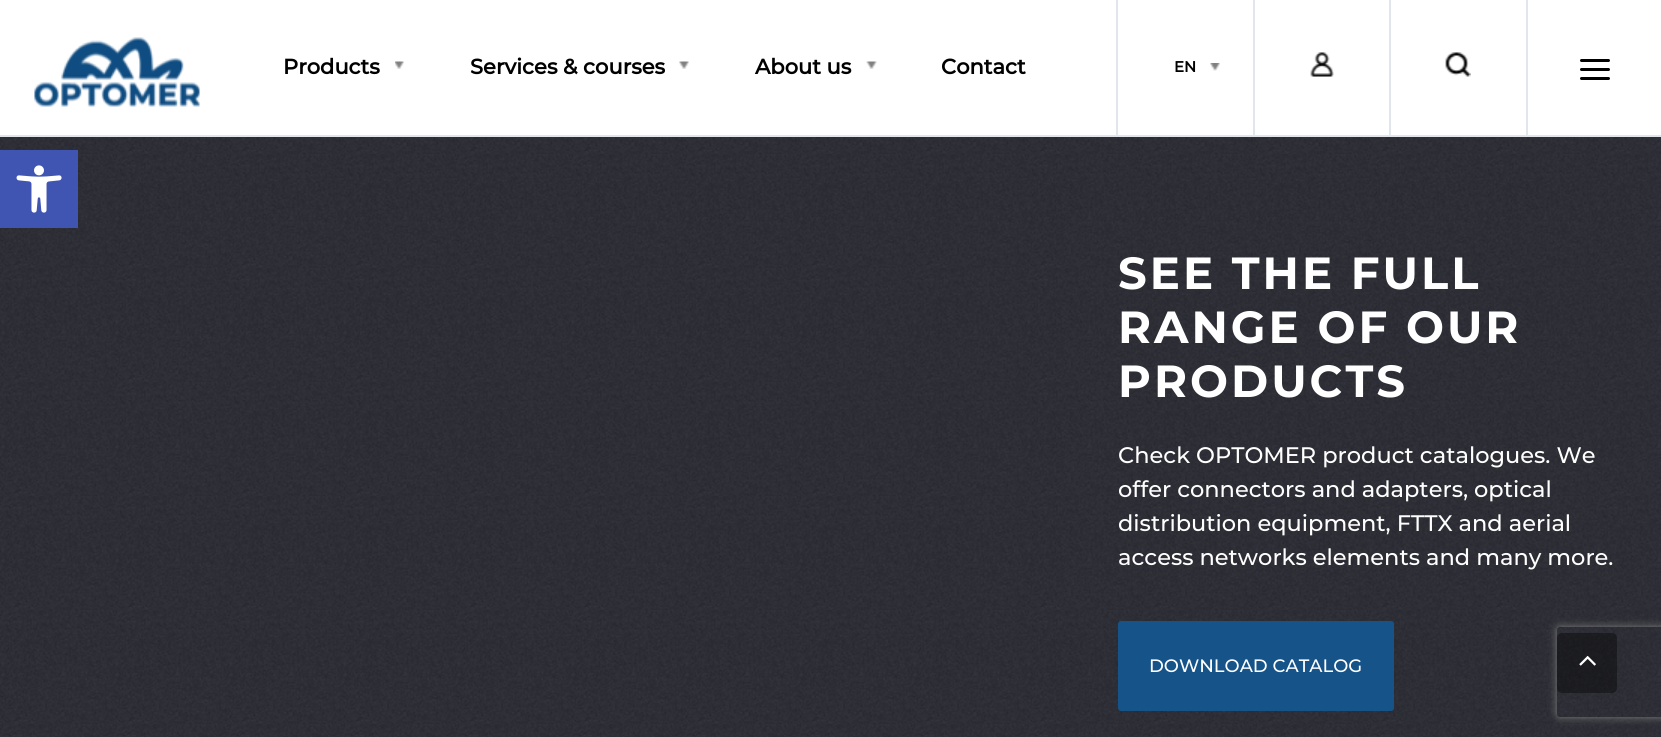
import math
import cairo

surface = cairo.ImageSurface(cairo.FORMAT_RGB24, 1661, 737)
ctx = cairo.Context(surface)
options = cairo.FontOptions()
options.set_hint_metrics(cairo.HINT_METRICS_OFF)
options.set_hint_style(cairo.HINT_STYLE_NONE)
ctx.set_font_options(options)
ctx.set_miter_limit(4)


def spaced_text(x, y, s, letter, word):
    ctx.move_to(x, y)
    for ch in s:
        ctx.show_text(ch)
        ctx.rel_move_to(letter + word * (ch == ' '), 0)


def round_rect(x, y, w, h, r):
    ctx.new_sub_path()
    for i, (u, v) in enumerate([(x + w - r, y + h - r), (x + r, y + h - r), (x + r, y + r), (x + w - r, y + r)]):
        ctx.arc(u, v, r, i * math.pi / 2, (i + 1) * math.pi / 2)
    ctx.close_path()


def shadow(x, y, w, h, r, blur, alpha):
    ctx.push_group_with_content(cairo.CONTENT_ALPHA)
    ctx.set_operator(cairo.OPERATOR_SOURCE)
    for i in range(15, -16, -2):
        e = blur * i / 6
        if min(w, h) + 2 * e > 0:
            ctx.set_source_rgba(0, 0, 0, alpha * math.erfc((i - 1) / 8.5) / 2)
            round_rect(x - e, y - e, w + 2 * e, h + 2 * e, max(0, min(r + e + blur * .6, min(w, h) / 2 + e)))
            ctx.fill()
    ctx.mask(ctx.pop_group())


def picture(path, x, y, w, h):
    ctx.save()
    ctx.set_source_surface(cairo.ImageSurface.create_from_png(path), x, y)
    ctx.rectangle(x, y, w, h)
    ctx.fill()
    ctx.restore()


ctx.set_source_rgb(1, 1, 1)
ctx.paint()
ctx.set_source_rgb(0.882, 0.902, 0.925)
ctx.rectangle(0, 135, 1661, 2)
ctx.fill()
picture("img1.png", 34, 37, 166, 70)
ctx.select_font_face("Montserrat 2", cairo.FONT_SLANT_NORMAL, cairo.FONT_WEIGHT_BOLD)
ctx.set_font_size(21)
ctx.set_source_rgb(0, 0, 0)
ctx.move_to(283, 74)
ctx.show_text("Products")
picture("img2.png", 395, 61, 9, 8)
ctx.move_to(470, 74)
ctx.show_text("Services & courses")
picture("img3.png", 679, 61, 10, 8)
ctx.move_to(755, 74)
ctx.show_text("About us")
picture("img4.png", 866, 61, 11, 8)
ctx.move_to(941, 74)
ctx.show_text("Contact")
ctx.set_source_rgb(0.882, 0.902, 0.925)
ctx.rectangle(1116, 0, 2, 135)
ctx.fill()
ctx.set_font_size(15)
ctx.set_source_rgb(0, 0, 0)
ctx.move_to(1174, 72)
ctx.show_text("EN")
picture("img5.png", 1210, 63, 10, 8)
ctx.set_source_rgb(0.882, 0.902, 0.925)
ctx.rectangle(1253, 0, 2, 135)
ctx.fill()
picture("img6.png", 1310, 52, 24, 25)
ctx.rectangle(1389, 0, 2, 135)
ctx.fill()
picture("img7.png", 1445, 52, 26, 25)
ctx.rectangle(1526, 0, 2, 135)
ctx.fill()
ctx.set_source_rgb(0, 0, 0)
round_rect(1580, 59, 30, 3, 1.5)
ctx.fill()
round_rect(1580, 68, 30, 3, 1.5)
ctx.fill()
round_rect(1580, 77, 30, 3, 1.5)
ctx.fill()
picture("img9.png", 0, 137, 1661, 600)
ctx.set_source_rgb(0.251, 0.329, 0.698)
ctx.rectangle(0, 150, 78, 78)
ctx.fill()
picture("img8.png", 16, 165, 46, 48)
ctx.select_font_face("Montserrat", cairo.FONT_SLANT_NORMAL, cairo.FONT_WEIGHT_BOLD)
ctx.set_font_size(45)
ctx.set_source_rgb(1, 1, 1)
spaced_text(1118, 289, "SEE THE FULL", 3, 0)
spaced_text(1118, 343, "RANGE OF OUR", 3, 0)
spaced_text(1118, 397, "PRODUCTS", 3, 0)
ctx.select_font_face("Montserrat Medium")
ctx.set_font_size(22.5)
ctx.move_to(1118, 463)
ctx.show_text("Check OPTOMER product catalogues. We")
ctx.move_to(1118, 497)
ctx.show_text("offer connectors and adapters, optical")
ctx.move_to(1118, 531)
ctx.show_text("distribution equipment, FTTX and aerial")
ctx.move_to(1118, 565)
ctx.show_text("access networks elements and many more.")
ctx.set_source_rgb(0.086, 0.325, 0.537)
round_rect(1119, 622, 274, 88, 2)
ctx.fill_preserve()
ctx.stroke()
ctx.set_font_size(18)
ctx.set_source_rgb(1, 1, 1)
ctx.move_to(1149, 672)
ctx.show_text("DOWNLOAD CATALOG")
ctx.save()
ctx.set_fill_rule(cairo.FILL_RULE_EVEN_ODD)
ctx.new_path()
ctx.move_to(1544, 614)
ctx.line_to(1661, 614)
ctx.line_to(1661, 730)
ctx.line_to(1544, 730)
ctx.close_path()
ctx.move_to(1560, 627)
ctx.line_to(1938, 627)
ctx.curve_to(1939.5, 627, 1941, 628.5, 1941, 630)
ctx.line_to(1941, 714)
ctx.curve_to(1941, 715.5, 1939.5, 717, 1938, 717)
ctx.line_to(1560, 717)
ctx.curve_to(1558.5, 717, 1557, 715.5, 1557, 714)
ctx.line_to(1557, 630)
ctx.curve_to(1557, 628.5, 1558.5, 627, 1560, 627)
ctx.close_path()
ctx.clip()
ctx.set_source_rgb(0.502, 0.502, 0.502)
shadow(1557, 627, 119, 90, 3, 4, 1)
ctx.restore()
ctx.set_source_rgba(0, 0, 0, 0.4)
round_rect(1557, 633, 60, 60, 5)
ctx.fill()
picture("img10.png", 1579, 655, 17, 11)
surface.write_to_png("page.png")
